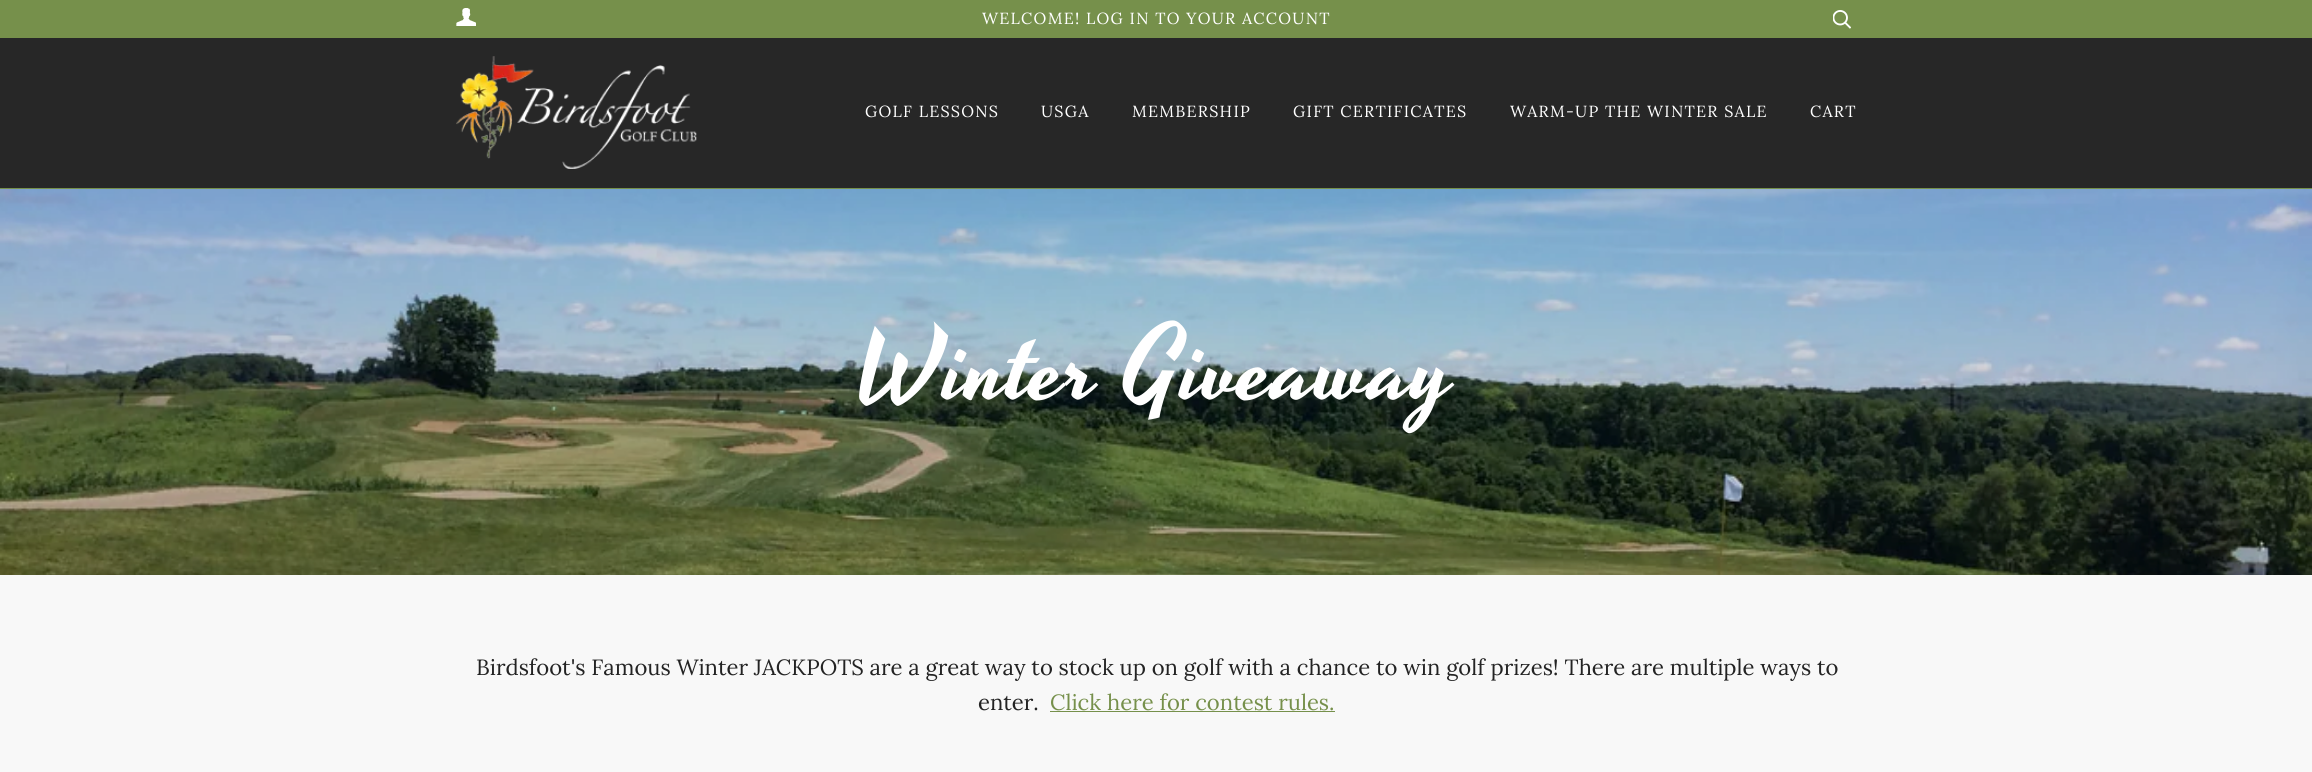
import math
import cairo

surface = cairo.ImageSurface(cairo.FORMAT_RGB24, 2312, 772)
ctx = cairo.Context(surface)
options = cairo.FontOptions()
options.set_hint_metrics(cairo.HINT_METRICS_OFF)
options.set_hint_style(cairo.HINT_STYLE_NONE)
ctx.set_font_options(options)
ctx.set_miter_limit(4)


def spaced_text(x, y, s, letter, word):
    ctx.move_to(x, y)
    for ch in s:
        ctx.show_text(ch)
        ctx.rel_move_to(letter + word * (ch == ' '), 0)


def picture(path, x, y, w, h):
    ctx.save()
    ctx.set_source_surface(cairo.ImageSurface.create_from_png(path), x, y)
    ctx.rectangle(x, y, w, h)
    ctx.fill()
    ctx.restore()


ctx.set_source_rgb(0.969, 0.969, 0.969)
ctx.paint()
ctx.set_source_rgb(0.463, 0.565, 0.294)
ctx.rectangle(0, 0, 2312, 38)
ctx.fill()
picture("img1.png", 456, 8, 20, 18)
ctx.select_font_face("Lora")
ctx.set_font_size(16.1)
ctx.set_source_rgb(1, 1, 1)
spaced_text(982, 24, "WELCOME! LOG IN TO YOUR ACCOUNT", 1.25, 0)
picture("img2.png", 1833, 10, 18, 19)
ctx.set_source_rgb(0.153, 0.153, 0.153)
ctx.rectangle(0, 38, 2312, 150)
ctx.fill()
ctx.set_source_rgb(0.463, 0.565, 0.294)
ctx.rectangle(0, 188, 2312, 1)
ctx.fill()
picture("img3.png", 456, 56, 241, 113)
ctx.set_source_rgb(1, 1, 1)
spaced_text(865, 117, "GOLF LESSONS", 1.25, 0)
spaced_text(1041, 117, "USGA", 1.25, 0)
spaced_text(1132, 117, "MEMBERSHIP", 1.25, 0)
spaced_text(1293, 117, "GIFT CERTIFICATES", 1.25, 0)
spaced_text(1510, 117, "WARM-UP THE WINTER SALE", 1.25, 0)
spaced_text(1810, 117, "CART", 1.25, 0)
picture("img4.png", 0, 189, 2312, 386)
ctx.select_font_face("Yesteryear")
ctx.set_font_size(100.5)
spaced_text(856, 397, "Winter Giveaway", 1.25, 0)
ctx.select_font_face("Lora")
ctx.set_font_size(22.05)
ctx.set_source_rgb(0.137, 0.137, 0.137)
ctx.move_to(476, 675)
ctx.show_text("Birdsfoot's Famous Winter JACKPOTS are a great way to stock up on golf with a chance to win golf prizes! There are multiple ways to")
ctx.move_to(978, 710)
ctx.show_text("enter.")
ctx.set_source_rgb(0.463, 0.565, 0.294)
ctx.move_to(1050, 710)
ctx.show_text("Click here for contest rules.")
ctx.rectangle(1050, 711, 285, 1)
ctx.fill()
surface.write_to_png("page.png")
